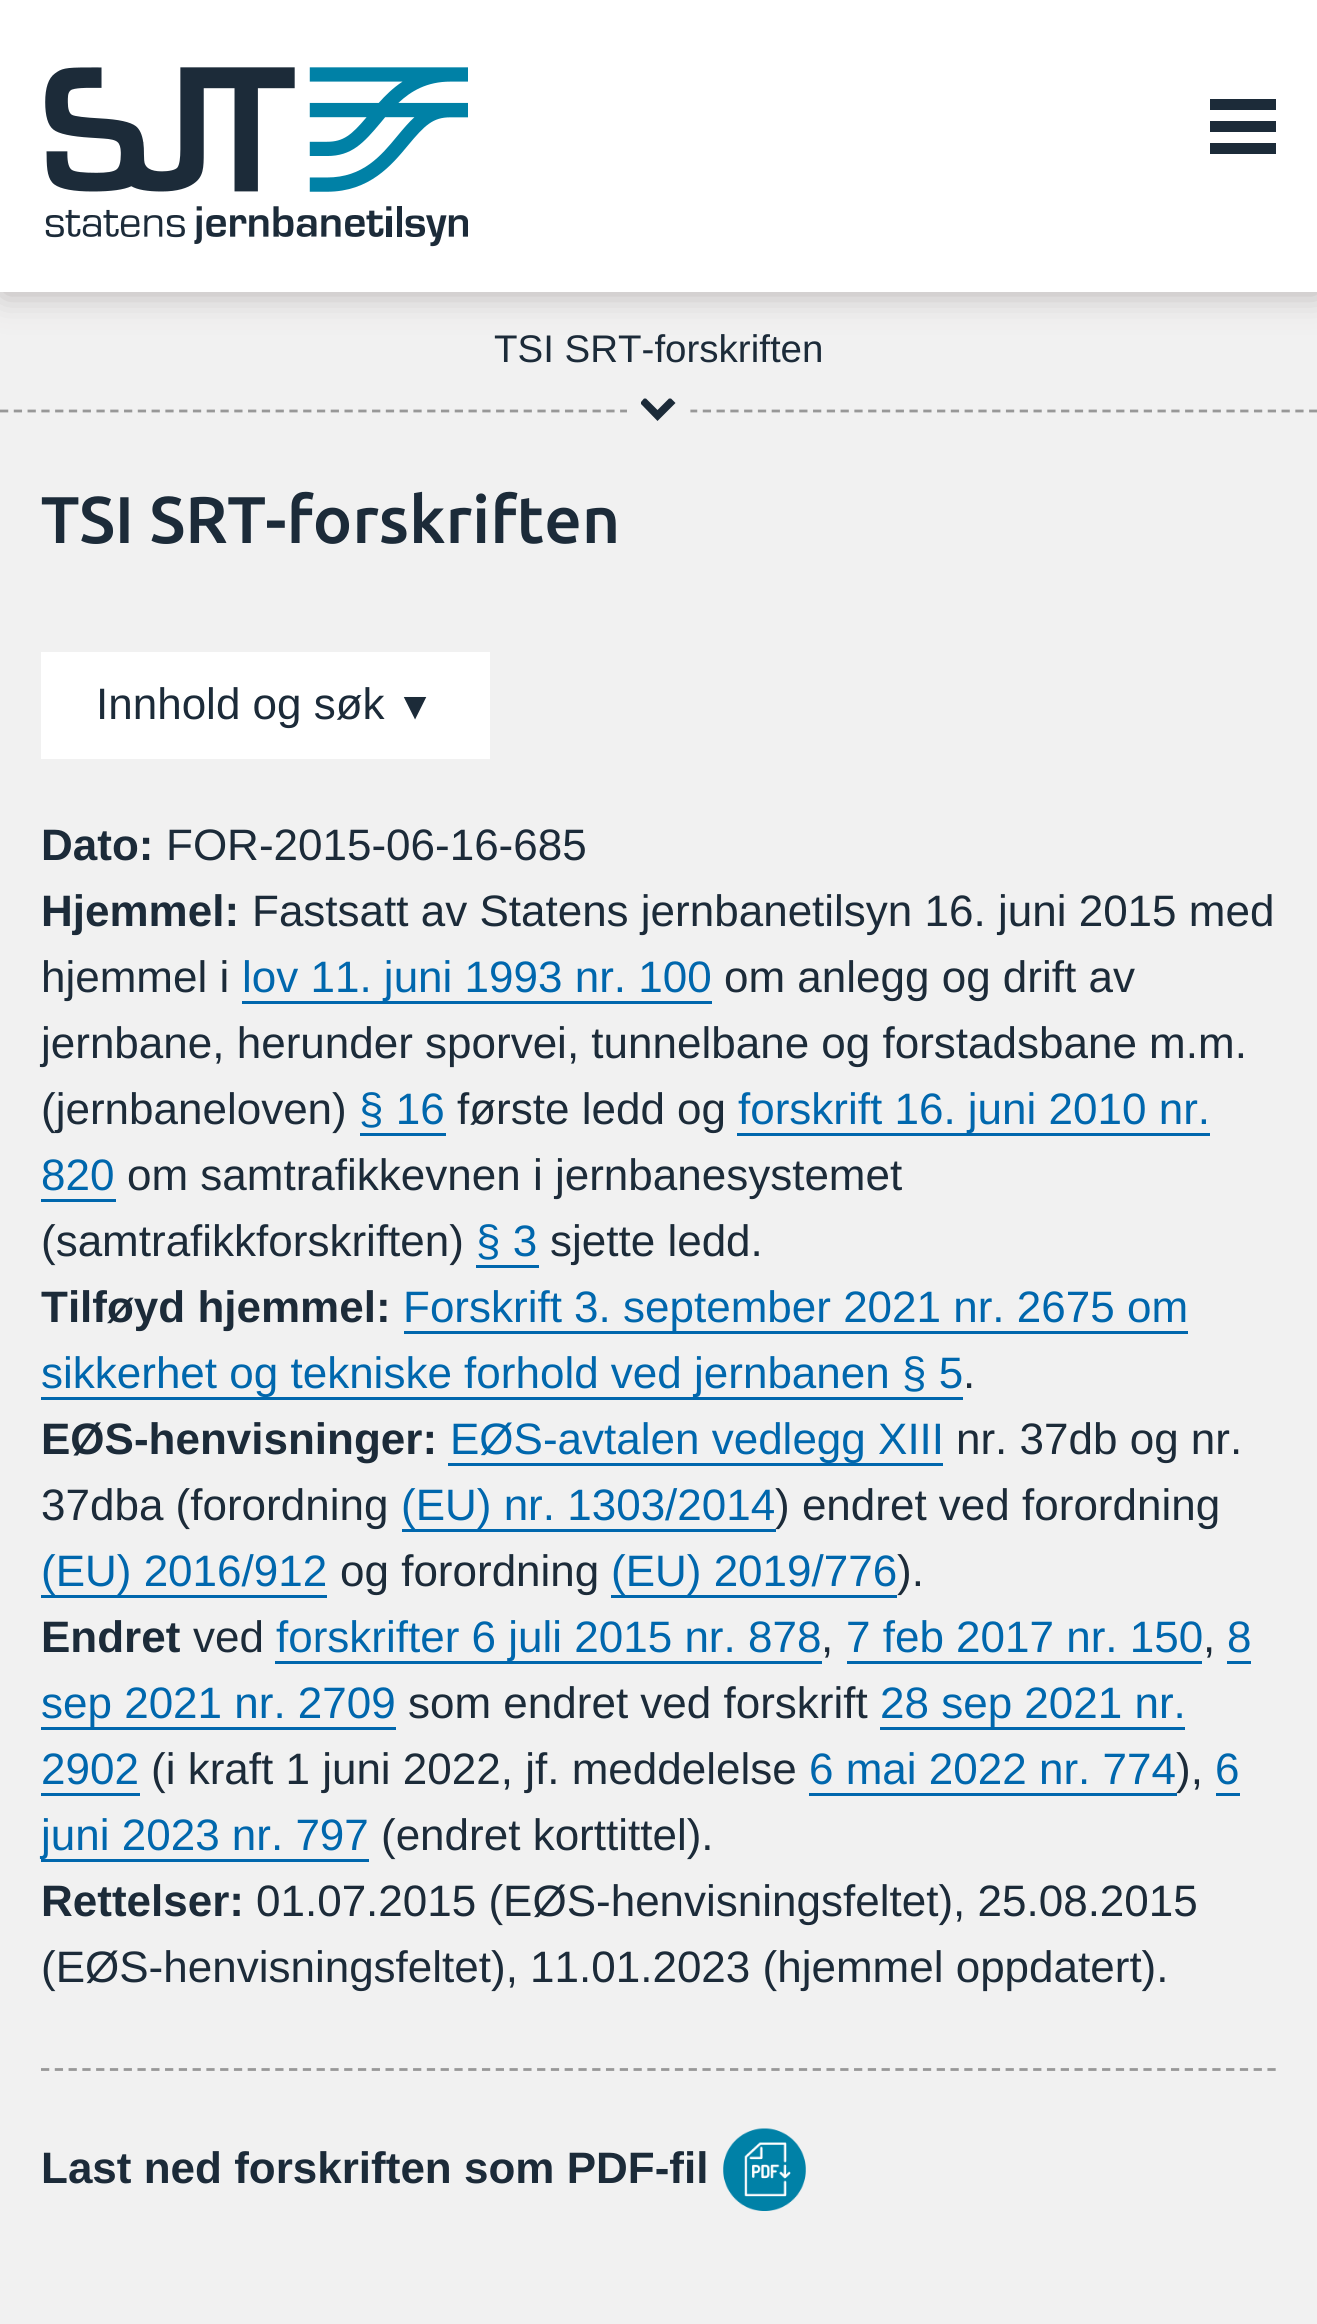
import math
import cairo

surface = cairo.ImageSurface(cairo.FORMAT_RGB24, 1317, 2324)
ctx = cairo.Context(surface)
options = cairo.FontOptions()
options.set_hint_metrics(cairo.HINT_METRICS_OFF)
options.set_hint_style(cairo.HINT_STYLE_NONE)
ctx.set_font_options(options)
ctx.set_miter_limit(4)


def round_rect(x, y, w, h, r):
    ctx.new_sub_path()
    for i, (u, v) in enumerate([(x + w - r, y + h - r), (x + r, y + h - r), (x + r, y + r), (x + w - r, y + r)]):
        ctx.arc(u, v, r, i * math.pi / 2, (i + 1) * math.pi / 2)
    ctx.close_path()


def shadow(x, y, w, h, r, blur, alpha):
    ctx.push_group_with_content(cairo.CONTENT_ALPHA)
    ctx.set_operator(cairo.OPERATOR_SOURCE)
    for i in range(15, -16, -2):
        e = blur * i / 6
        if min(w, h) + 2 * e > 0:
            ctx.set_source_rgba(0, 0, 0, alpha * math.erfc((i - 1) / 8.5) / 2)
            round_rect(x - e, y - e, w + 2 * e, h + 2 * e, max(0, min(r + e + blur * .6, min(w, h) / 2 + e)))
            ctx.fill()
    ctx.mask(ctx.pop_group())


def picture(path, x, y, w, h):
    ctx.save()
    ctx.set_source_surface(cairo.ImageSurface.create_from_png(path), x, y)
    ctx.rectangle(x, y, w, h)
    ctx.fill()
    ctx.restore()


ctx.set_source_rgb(0.945, 0.945, 0.945)
ctx.paint()
ctx.set_source_rgb(0.722, 0.698, 0.698)
shadow(3, 3, 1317, 291, 0, 16.5, 1)
ctx.set_source_rgb(1, 1, 1)
ctx.rectangle(0, 0, 1317, 292)
ctx.fill()
picture("img1.png", 45, 67, 423, 180)
ctx.set_source_rgb(0.11, 0.169, 0.224)
ctx.rectangle(1210, 121, 66, 11)
ctx.fill()
ctx.rectangle(1210, 99, 66, 11)
ctx.fill()
ctx.rectangle(1210, 143, 66, 11)
ctx.fill()
ctx.new_path()
ctx.move_to(0, 411)
ctx.line_to(1317, 411)
ctx.set_source_rgb(0.596, 0.596, 0.596)
ctx.set_line_width(2.8)
ctx.set_dash([8.25, 5.53])
ctx.stroke()
ctx.select_font_face("Liberation Sans")
ctx.set_font_size(38.5)
ctx.set_source_rgb(0.11, 0.169, 0.224)
ctx.move_to(494, 362)
ctx.show_text("TSI SRT-forskriften")
ctx.set_source_rgb(0.945, 0.945, 0.945)
ctx.rectangle(627, 409, 63, 4)
ctx.fill()
ctx.set_source_rgb(0.11, 0.169, 0.224)
ctx.new_path()
ctx.move_to(675.5, 403)
ctx.line_to(657.5, 421)
ctx.line_to(641, 404)
ctx.line_to(641, 402)
ctx.line_to(644, 398.5)
ctx.line_to(646, 398.5)
ctx.line_to(657.5, 410)
ctx.line_to(669, 398.5)
ctx.line_to(671, 398.5)
ctx.close_path()
ctx.fill()
ctx.new_path()
ctx.move_to(683.5, 389.5)
ctx.line_to(683.5, 430.5)
ctx.line_to(634, 430.5)
ctx.line_to(634, 389.5)
ctx.close_path()
ctx.set_source_rgb(0.945, 0.945, 0.945)
ctx.set_line_width(13.8)
ctx.set_dash([])
ctx.stroke()
ctx.select_font_face("Ubuntu Medium")
ctx.set_font_size(66)
ctx.set_source_rgb(0.11, 0.169, 0.224)
ctx.move_to(41, 543)
ctx.show_text("TSI SRT-forskriften")
ctx.set_source_rgb(1, 1, 1)
ctx.rectangle(41, 652, 449, 107)
ctx.fill()
ctx.select_font_face("Liberation Sans")
ctx.set_font_size(44)
ctx.set_source_rgb(0.11, 0.169, 0.224)
ctx.move_to(96, 719)
ctx.show_text("Innhold og søk")
ctx.set_font_size(38.5)
ctx.move_to(396, 719)
ctx.show_text("▼")
ctx.select_font_face("Liberation Sans", cairo.FONT_SLANT_NORMAL, cairo.FONT_WEIGHT_BOLD)
ctx.set_font_size(44)
ctx.move_to(41, 860)
ctx.show_text("Dato:")
ctx.select_font_face("Liberation Sans")
ctx.move_to(166, 860)
ctx.show_text("FOR-2015-06-16-685")
ctx.select_font_face("Liberation Sans", cairo.FONT_SLANT_NORMAL, cairo.FONT_WEIGHT_BOLD)
ctx.move_to(41, 926)
ctx.show_text("Hjemmel:")
ctx.select_font_face("Liberation Sans")
ctx.move_to(252, 926)
ctx.show_text("Fastsatt av Statens jernbanetilsyn 16. juni 2015 med")
ctx.move_to(41, 992)
ctx.show_text("hjemmel i")
ctx.set_source_rgb(0, 0.404, 0.678)
ctx.rectangle(242, 1001, 470, 3)
ctx.fill()
ctx.move_to(242, 992)
ctx.show_text("lov 11. juni 1993 nr. 100")
ctx.set_source_rgb(0.11, 0.169, 0.224)
ctx.move_to(724, 992)
ctx.show_text("om anlegg og drift av")
ctx.move_to(41, 1058)
ctx.show_text("jernbane, herunder sporvei, tunnelbane og forstadsbane m.m.")
ctx.move_to(41, 1124)
ctx.show_text("(jernbaneloven)")
ctx.set_source_rgb(0, 0.404, 0.678)
ctx.move_to(359, 1124)
ctx.show_text("§ 16")
ctx.rectangle(360, 1133, 86, 3)
ctx.fill()
ctx.set_source_rgb(0.11, 0.169, 0.224)
ctx.move_to(457, 1124)
ctx.show_text("første ledd og")
ctx.set_source_rgb(0, 0.404, 0.678)
ctx.rectangle(737, 1133, 473, 3)
ctx.fill()
ctx.move_to(738, 1124)
ctx.show_text("forskrift 16. juni 2010 nr.")
ctx.move_to(41, 1190)
ctx.show_text("820")
ctx.rectangle(41, 1199, 75, 3)
ctx.fill()
ctx.set_source_rgb(0.11, 0.169, 0.224)
ctx.move_to(127, 1190)
ctx.show_text("om samtrafikkevnen i jernbanesystemet")
ctx.move_to(41, 1256)
ctx.show_text("(samtrafikkforskriften)")
ctx.set_source_rgb(0, 0.404, 0.678)
ctx.move_to(476, 1256)
ctx.show_text("§ 3")
ctx.rectangle(476, 1265, 63, 3)
ctx.fill()
ctx.set_source_rgb(0.11, 0.169, 0.224)
ctx.move_to(550, 1256)
ctx.show_text("sjette ledd.")
ctx.select_font_face("Liberation Sans", cairo.FONT_SLANT_NORMAL, cairo.FONT_WEIGHT_BOLD)
ctx.move_to(41, 1322)
ctx.show_text("Tilføyd hjemmel:")
ctx.set_source_rgb(0, 0.404, 0.678)
ctx.rectangle(404, 1331, 784, 3)
ctx.fill()
ctx.select_font_face("Liberation Sans")
ctx.move_to(403, 1322)
ctx.show_text("Forskrift 3. september 2021 nr. 2675 om")
ctx.rectangle(41, 1397, 922, 3)
ctx.fill()
ctx.move_to(41, 1388)
ctx.show_text("sikkerhet og tekniske forhold ved jernbanen § 5")
ctx.set_source_rgb(0.11, 0.169, 0.224)
ctx.move_to(963, 1388)
ctx.show_text(".")
ctx.select_font_face("Liberation Sans", cairo.FONT_SLANT_NORMAL, cairo.FONT_WEIGHT_BOLD)
ctx.move_to(41, 1454)
ctx.show_text("EØS-henvisninger:")
ctx.set_source_rgb(0, 0.404, 0.678)
ctx.rectangle(448, 1463, 495, 3)
ctx.fill()
ctx.select_font_face("Liberation Sans")
ctx.move_to(450, 1454)
ctx.show_text("EØS-avtalen vedlegg XIII")
ctx.set_source_rgb(0.11, 0.169, 0.224)
ctx.move_to(956, 1454)
ctx.show_text("nr. 37db og nr.")
ctx.move_to(41, 1520)
ctx.show_text("37dba (forordning")
ctx.set_source_rgb(0, 0.404, 0.678)
ctx.rectangle(402, 1529, 374, 3)
ctx.fill()
ctx.move_to(401, 1520)
ctx.show_text("(EU) nr. 1303/2014")
ctx.set_source_rgb(0.11, 0.169, 0.224)
ctx.move_to(775, 1520)
ctx.show_text(") endret ved forordning")
ctx.set_source_rgb(0, 0.404, 0.678)
ctx.rectangle(41, 1595, 286, 3)
ctx.fill()
ctx.move_to(41, 1586)
ctx.show_text("(EU) 2016/912")
ctx.set_source_rgb(0.11, 0.169, 0.224)
ctx.move_to(340, 1586)
ctx.show_text("og forordning")
ctx.set_source_rgb(0, 0.404, 0.678)
ctx.rectangle(611, 1595, 286, 3)
ctx.fill()
ctx.move_to(611, 1586)
ctx.show_text("(EU) 2019/776")
ctx.set_source_rgb(0.11, 0.169, 0.224)
ctx.move_to(897, 1586)
ctx.show_text(").")
ctx.select_font_face("Liberation Sans", cairo.FONT_SLANT_NORMAL, cairo.FONT_WEIGHT_BOLD)
ctx.move_to(41, 1652)
ctx.show_text("Endret")
ctx.select_font_face("Liberation Sans")
ctx.move_to(193, 1652)
ctx.show_text("ved")
ctx.set_source_rgb(0, 0.404, 0.678)
ctx.rectangle(275, 1661, 547, 3)
ctx.fill()
ctx.move_to(276, 1652)
ctx.show_text("forskrifter 6 juli 2015 nr. 878")
ctx.set_source_rgb(0.11, 0.169, 0.224)
ctx.move_to(821, 1652)
ctx.show_text(",")
ctx.set_source_rgb(0, 0.404, 0.678)
ctx.move_to(846, 1652)
ctx.show_text("7 feb 2017 nr. 150")
ctx.rectangle(847, 1661, 355, 3)
ctx.fill()
ctx.set_source_rgb(0.11, 0.169, 0.224)
ctx.move_to(1203, 1652)
ctx.show_text(",")
ctx.set_source_rgb(0, 0.404, 0.678)
ctx.move_to(1227, 1652)
ctx.show_text("8")
ctx.rectangle(1227, 1661, 24, 3)
ctx.fill()
ctx.rectangle(41, 1727, 355, 3)
ctx.fill()
ctx.move_to(41, 1718)
ctx.show_text("sep 2021 nr. 2709")
ctx.set_source_rgb(0.11, 0.169, 0.224)
ctx.move_to(408, 1718)
ctx.show_text("som endret ved forskrift")
ctx.set_source_rgb(0, 0.404, 0.678)
ctx.rectangle(880, 1727, 305, 3)
ctx.fill()
ctx.move_to(880, 1718)
ctx.show_text("28 sep 2021 nr.")
ctx.move_to(41, 1784)
ctx.show_text("2902")
ctx.rectangle(41, 1793, 99, 3)
ctx.fill()
ctx.set_source_rgb(0.11, 0.169, 0.224)
ctx.move_to(151, 1784)
ctx.show_text("(i kraft 1 juni 2022, jf. meddelelse")
ctx.set_source_rgb(0, 0.404, 0.678)
ctx.move_to(809, 1784)
ctx.show_text("6 mai 2022 nr. 774")
ctx.rectangle(809, 1793, 368, 3)
ctx.fill()
ctx.set_source_rgb(0.11, 0.169, 0.224)
ctx.move_to(1176, 1784)
ctx.show_text("),")
ctx.set_source_rgb(0, 0.404, 0.678)
ctx.move_to(1215, 1784)
ctx.show_text("6")
ctx.rectangle(1216, 1793, 24, 3)
ctx.fill()
ctx.rectangle(41, 1859, 328, 3)
ctx.fill()
ctx.move_to(41, 1850)
ctx.show_text("juni 2023 nr. 797")
ctx.set_source_rgb(0.11, 0.169, 0.224)
ctx.move_to(381, 1850)
ctx.show_text("(endret korttittel).")
ctx.select_font_face("Liberation Sans", cairo.FONT_SLANT_NORMAL, cairo.FONT_WEIGHT_BOLD)
ctx.move_to(41, 1916)
ctx.show_text("Rettelser:")
ctx.select_font_face("Liberation Sans")
ctx.move_to(256, 1916)
ctx.show_text("01.07.2015 (EØS-henvisningsfeltet), 25.08.2015")
ctx.move_to(41, 1982)
ctx.show_text("(EØS-henvisningsfeltet), 11.01.2023 (hjemmel oppdatert).")
ctx.new_path()
ctx.move_to(41, 2069.5)
ctx.line_to(1276, 2069.5)
ctx.set_source_rgb(0.596, 0.596, 0.596)
ctx.set_line_width(2.8)
ctx.set_dash([8.25, 5.53])
ctx.stroke()
ctx.select_font_face("Liberation Sans", cairo.FONT_SLANT_NORMAL, cairo.FONT_WEIGHT_BOLD)
ctx.set_source_rgb(0.11, 0.169, 0.224)
ctx.move_to(41, 2183)
ctx.show_text("Last ned forskriften som PDF-fil")
picture("img2.png", 723, 2128, 83, 83)
surface.write_to_png("page.png")
